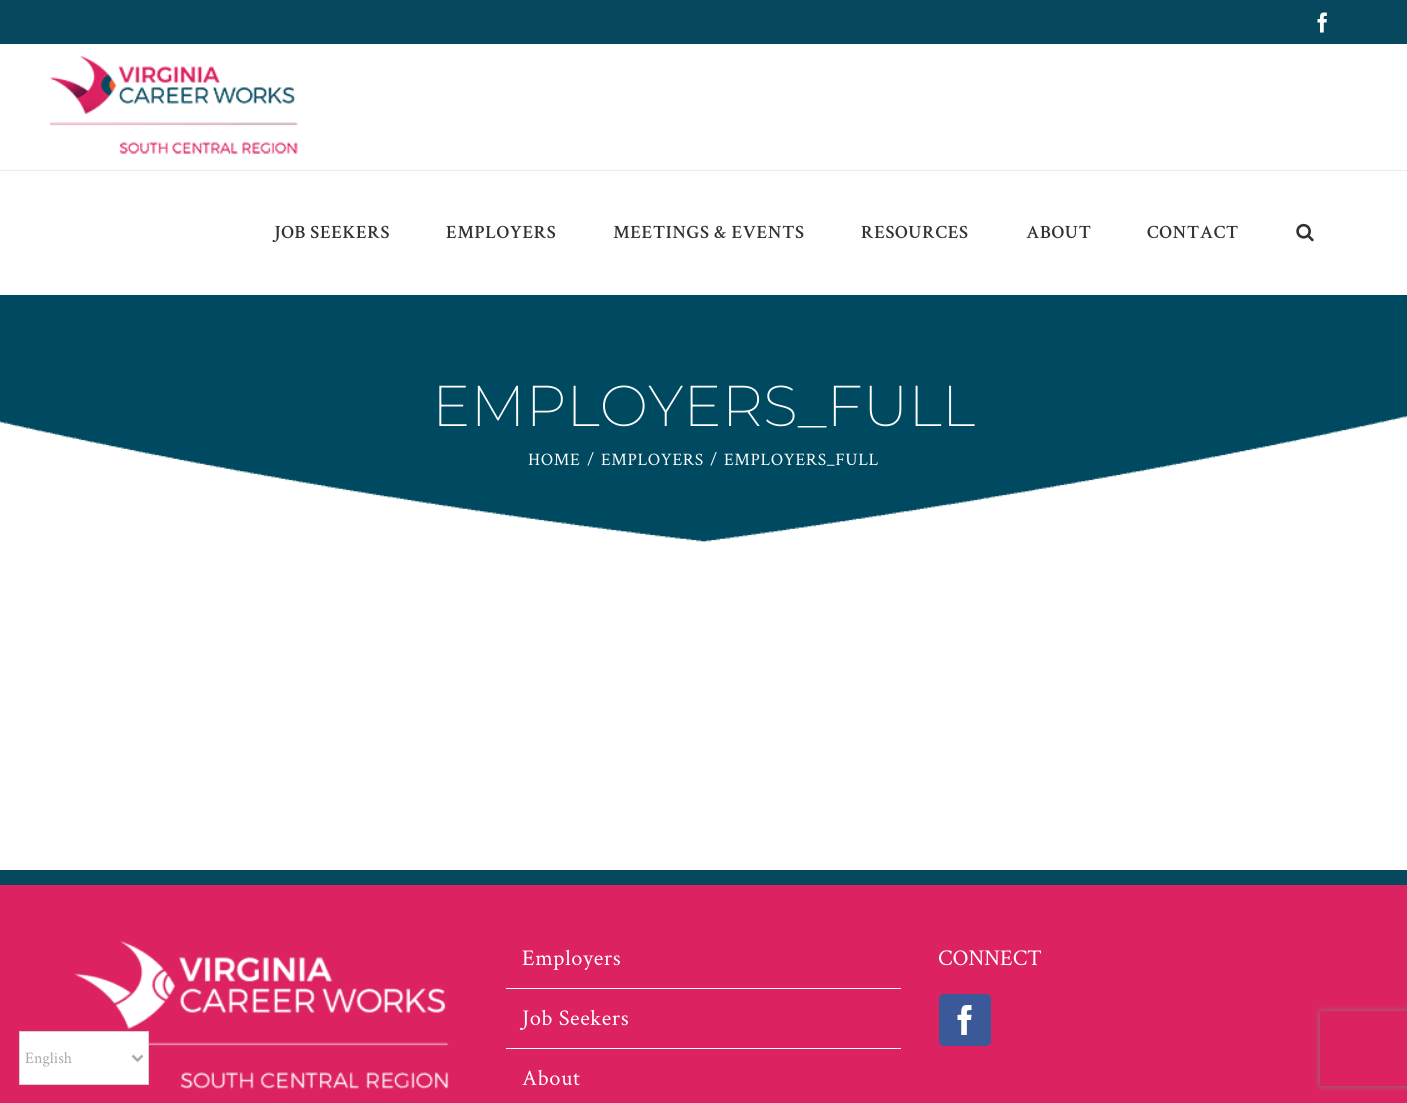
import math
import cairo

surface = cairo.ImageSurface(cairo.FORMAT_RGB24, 1407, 1103)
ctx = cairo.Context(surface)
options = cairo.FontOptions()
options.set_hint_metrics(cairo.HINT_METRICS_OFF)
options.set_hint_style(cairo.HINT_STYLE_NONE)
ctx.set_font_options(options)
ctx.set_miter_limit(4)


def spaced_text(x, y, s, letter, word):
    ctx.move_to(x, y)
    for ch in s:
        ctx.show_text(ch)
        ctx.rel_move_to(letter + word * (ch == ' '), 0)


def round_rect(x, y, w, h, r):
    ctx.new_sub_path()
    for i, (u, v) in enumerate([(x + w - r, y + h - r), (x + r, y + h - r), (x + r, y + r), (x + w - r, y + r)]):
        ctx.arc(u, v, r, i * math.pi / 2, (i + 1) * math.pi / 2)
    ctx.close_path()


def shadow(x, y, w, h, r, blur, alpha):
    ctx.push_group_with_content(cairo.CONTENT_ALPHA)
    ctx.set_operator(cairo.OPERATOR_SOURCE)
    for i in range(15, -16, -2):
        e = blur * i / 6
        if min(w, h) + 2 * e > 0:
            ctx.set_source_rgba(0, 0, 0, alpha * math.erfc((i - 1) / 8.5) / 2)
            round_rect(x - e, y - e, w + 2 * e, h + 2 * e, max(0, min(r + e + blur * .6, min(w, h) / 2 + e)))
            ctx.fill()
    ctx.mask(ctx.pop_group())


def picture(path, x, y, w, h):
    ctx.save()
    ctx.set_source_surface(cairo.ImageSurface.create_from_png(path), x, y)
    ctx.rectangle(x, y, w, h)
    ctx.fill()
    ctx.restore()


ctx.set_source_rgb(1, 1, 1)
ctx.paint()
ctx.set_source_rgb(0.863, 0.133, 0.38)
ctx.rectangle(0, 885, 1407, 218)
ctx.fill()
picture("img5.png", 75, 941, 374, 148)
ctx.set_source_rgb(1, 1, 1)
ctx.rectangle(19.5, 1031.5, 129, 53)
ctx.fill_preserve()
ctx.set_source_rgb(0.824, 0.824, 0.824)
ctx.set_line_width(1)
ctx.stroke()
ctx.new_path()
ctx.move_to(132.5, 1055.5)
ctx.line_to(137.5, 1060.5)
ctx.line_to(142.5, 1055.5)
ctx.set_source_rgb(0.667, 0.663, 0.663)
ctx.set_line_width(2.5)
ctx.stroke()
ctx.select_font_face("Crimson Text")
ctx.set_font_size(16)
ctx.move_to(25, 1063)
ctx.show_text("English")
ctx.set_source_rgb(0.027, 0.286, 0.373)
ctx.rectangle(0, 0, 1407, 44)
ctx.fill()
picture("img1.png", 1317, 12, 10, 21)
ctx.set_source_rgb(0.918, 0.918, 0.918)
ctx.rectangle(0, 170, 1407, 1)
ctx.fill()
picture("img2.png", 50, 56, 248, 98)
ctx.select_font_face("Crimson Text SemiBold")
ctx.set_font_size(18.75)
ctx.set_source_rgb(0.2, 0.2, 0.2)
spaced_text(274, 238, "JOB SEEKERS", 0.6, 0)
spaced_text(446, 238, "EMPLOYERS", 0.6, 0)
spaced_text(613, 238, "MEETINGS & EVENTS", 0.6, 0)
spaced_text(861, 238, "RESOURCES", 0.6, 0)
spaced_text(1026, 238, "ABOUT", 0.6, 0)
spaced_text(1147, 238, "CONTACT", 0.6, 0)
picture("img3.png", 1296, 223, 18, 19)
picture("img4.png", 0, 295, 1407, 247)
ctx.select_font_face("Montserrat Thin")
ctx.set_font_size(57.5)
ctx.set_source_rgb(1, 1, 1)
ctx.move_to(432, 426)
ctx.show_text("EMPLOYERS_FULL")
ctx.select_font_face("Crimson Text")
ctx.set_font_size(17.5)
spaced_text(528, 465, "HOME", 0.6, 0)
spaced_text(587, 465, "/", 0.6, 0)
spaced_text(601, 465, "EMPLOYERS", 0.6, 0)
spaced_text(710, 465, "/", 0.6, 0)
spaced_text(724, 465, "EMPLOYERS_FULL", 0.6, 0)
ctx.set_source_rgb(0.027, 0.286, 0.373)
ctx.rectangle(0, 870, 1407, 15)
ctx.fill()
ctx.set_source_rgb(1, 1, 1)
ctx.rectangle(506, 988, 395, 1)
ctx.fill()
ctx.set_font_size(22.5)
spaced_text(522, 965, "Employers", 0.6, 0)
ctx.rectangle(506, 1048, 395, 1)
ctx.fill()
spaced_text(522, 1025, "Job Seekers", 0.6, 0)
spaced_text(522, 1085, "About", 0.6, 0)
ctx.move_to(938, 965)
ctx.show_text("CONNECT")
ctx.set_source_rgb(0.231, 0.349, 0.596)
round_rect(939.5, 994.5, 51, 51, 4.5)
ctx.fill_preserve()
ctx.set_line_width(1)
ctx.stroke()
picture("img6.png", 957, 1005, 15, 30)
ctx.save()
ctx.set_fill_rule(cairo.FILL_RULE_EVEN_ODD)
ctx.new_path()
ctx.move_to(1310, 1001)
ctx.line_to(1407, 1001)
ctx.line_to(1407, 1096)
ctx.line_to(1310, 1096)
ctx.close_path()
ctx.move_to(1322.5, 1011)
ctx.line_to(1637.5, 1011)
ctx.curve_to(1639, 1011, 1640, 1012, 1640, 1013.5)
ctx.line_to(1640, 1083.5)
ctx.curve_to(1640, 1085, 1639, 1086, 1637.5, 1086)
ctx.line_to(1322.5, 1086)
ctx.curve_to(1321, 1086, 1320, 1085, 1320, 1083.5)
ctx.line_to(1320, 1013.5)
ctx.curve_to(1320, 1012, 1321, 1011, 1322.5, 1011)
ctx.close_path()
ctx.clip()
ctx.set_source_rgb(0.502, 0.502, 0.502)
shadow(1320, 1011, 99, 75, 2.5, 3, 1)
ctx.restore()
surface.write_to_png("page.png")
